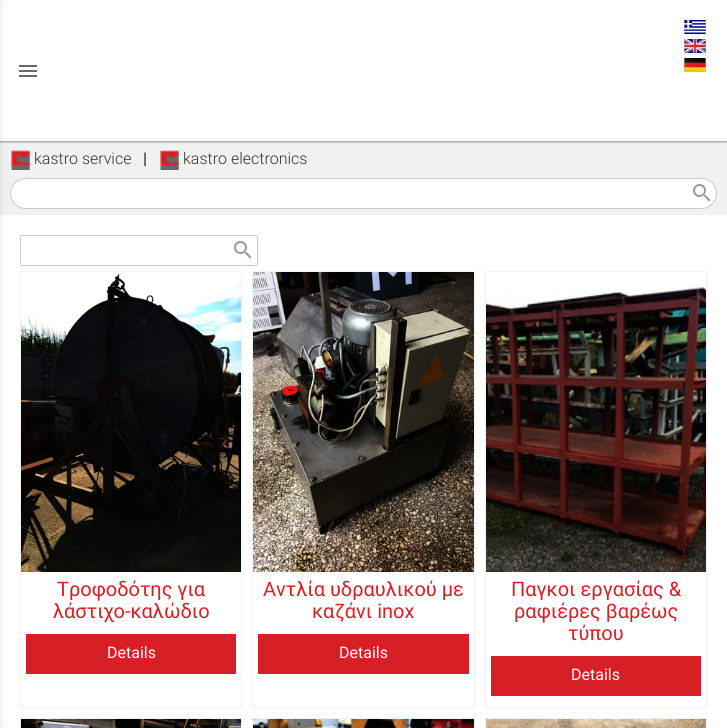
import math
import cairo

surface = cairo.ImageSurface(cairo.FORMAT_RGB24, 727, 728)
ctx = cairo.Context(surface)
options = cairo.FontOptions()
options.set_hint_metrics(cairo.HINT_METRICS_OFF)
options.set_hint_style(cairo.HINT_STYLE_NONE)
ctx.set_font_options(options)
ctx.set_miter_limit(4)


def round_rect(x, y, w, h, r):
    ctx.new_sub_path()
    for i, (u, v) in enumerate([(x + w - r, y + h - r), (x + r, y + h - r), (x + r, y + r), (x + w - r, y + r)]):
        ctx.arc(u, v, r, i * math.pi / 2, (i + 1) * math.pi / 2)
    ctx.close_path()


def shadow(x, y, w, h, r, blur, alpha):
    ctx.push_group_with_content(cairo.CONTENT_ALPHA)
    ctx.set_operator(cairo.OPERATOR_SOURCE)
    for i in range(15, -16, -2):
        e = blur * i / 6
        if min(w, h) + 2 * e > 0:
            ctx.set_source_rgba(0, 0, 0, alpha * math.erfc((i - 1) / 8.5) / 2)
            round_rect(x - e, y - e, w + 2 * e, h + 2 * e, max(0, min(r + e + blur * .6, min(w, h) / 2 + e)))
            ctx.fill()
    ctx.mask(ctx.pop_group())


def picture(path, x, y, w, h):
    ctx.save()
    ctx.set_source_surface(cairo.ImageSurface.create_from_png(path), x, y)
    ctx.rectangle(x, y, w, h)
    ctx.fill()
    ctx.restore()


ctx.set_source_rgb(1, 1, 1)
ctx.paint()
ctx.set_source_rgb(0.945, 0.945, 0.945)
ctx.rectangle(0, 141, 727, 74)
ctx.fill()
ctx.save()
ctx.rectangle(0, 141, 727, 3)
ctx.clip()
ctx.set_source_rgb(0, 0, 0)
shadow(0, 1, 727, 141, 0, 1, 0.4)
ctx.restore()
picture("img1.png", 19, 65, 18, 12)
picture("img2.png", 684, 20, 22, 14)
picture("img3.png", 684, 39, 22, 14)
picture("img4.png", 684, 58, 22, 14)
picture("img5.png", 11, 150, 19, 20)
ctx.set_source_rgb(1, 1, 1)
round_rect(10.5, 178.5, 706, 30, 15)
ctx.fill_preserve()
ctx.set_source_rgb(0.792, 0.792, 0.792)
ctx.set_line_width(1)
ctx.stroke()
ctx.set_source_rgb(0, 0, 0)
shadow(-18, 0, 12, 728, 0, 6, 0.4)
ctx.select_font_face("Roboto Light")
ctx.set_font_size(16)
ctx.set_source_rgb(0.2, 0.2, 0.2)
ctx.move_to(34, 164)
ctx.show_text("kastro service")
ctx.select_font_face("Roboto", cairo.FONT_SLANT_NORMAL, cairo.FONT_WEIGHT_BOLD)
ctx.move_to(143, 164)
ctx.show_text("|")
picture("img6.png", 160, 150, 19, 20)
ctx.select_font_face("Roboto Light")
ctx.move_to(183, 164)
ctx.show_text("kastro electronics")
picture("img7.png", 693, 184, 18, 18)
round_rect(20.5, 235.5, 237, 30, 1.5)
ctx.set_source_rgb(0.792, 0.792, 0.792)
ctx.stroke()
picture("img7.png", 234, 241, 18, 18)
ctx.rectangle(20.5, 271.5, 221, 436)
ctx.set_source_rgb(0.945, 0.945, 0.945)
ctx.stroke()
picture("img8.png", 21, 274, 220, 298)
ctx.select_font_face("Roboto")
ctx.set_font_size(20)
ctx.set_source_rgb(0.851, 0.122, 0.149)
ctx.move_to(57, 596)
ctx.show_text("Τροφοδότης για")
ctx.move_to(53, 618)
ctx.show_text("λάστιχο-καλώδιο")
ctx.rectangle(26, 634, 210, 40)
ctx.fill()
ctx.set_font_size(16)
ctx.set_source_rgb(1, 1, 1)
ctx.move_to(107, 658)
ctx.show_text("Details")
ctx.rectangle(252.5, 271.5, 222, 436)
ctx.set_source_rgb(0.945, 0.945, 0.945)
ctx.stroke()
picture("img9.png", 253, 272, 221, 300)
ctx.set_font_size(20)
ctx.set_source_rgb(0.851, 0.122, 0.149)
ctx.move_to(263, 596)
ctx.show_text("Αντλία υδραυλικού με")
ctx.move_to(312, 618)
ctx.show_text("καζάνι inox")
ctx.rectangle(258, 634, 211, 40)
ctx.fill()
ctx.set_font_size(16)
ctx.set_source_rgb(1, 1, 1)
ctx.move_to(339, 658)
ctx.show_text("Details")
ctx.rectangle(485.5, 271.5, 221, 436)
ctx.set_source_rgb(0.945, 0.945, 0.945)
ctx.stroke()
picture("img10.png", 486, 285, 220, 287)
ctx.set_font_size(20)
ctx.set_source_rgb(0.851, 0.122, 0.149)
ctx.move_to(511, 596)
ctx.show_text("Παγκοι εργασίας &")
ctx.move_to(514, 618)
ctx.show_text("ραφιέρες βαρέως")
ctx.move_to(568, 640)
ctx.show_text("τύπου")
ctx.rectangle(491, 656, 210, 40)
ctx.fill()
ctx.set_font_size(16)
ctx.set_source_rgb(1, 1, 1)
ctx.move_to(571, 680)
ctx.show_text("Details")
ctx.rectangle(20.5, 718.5, 221, 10)
ctx.set_source_rgb(0.945, 0.945, 0.945)
ctx.stroke()
picture("img11.png", 21, 719, 220, 9)
ctx.rectangle(252.5, 718.5, 222, 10)
ctx.stroke()
picture("img12.png", 253, 719, 221, 9)
ctx.rectangle(485.5, 718.5, 221, 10)
ctx.stroke()
picture("img13.png", 486, 719, 220, 9)
surface.write_to_png("page.png")
